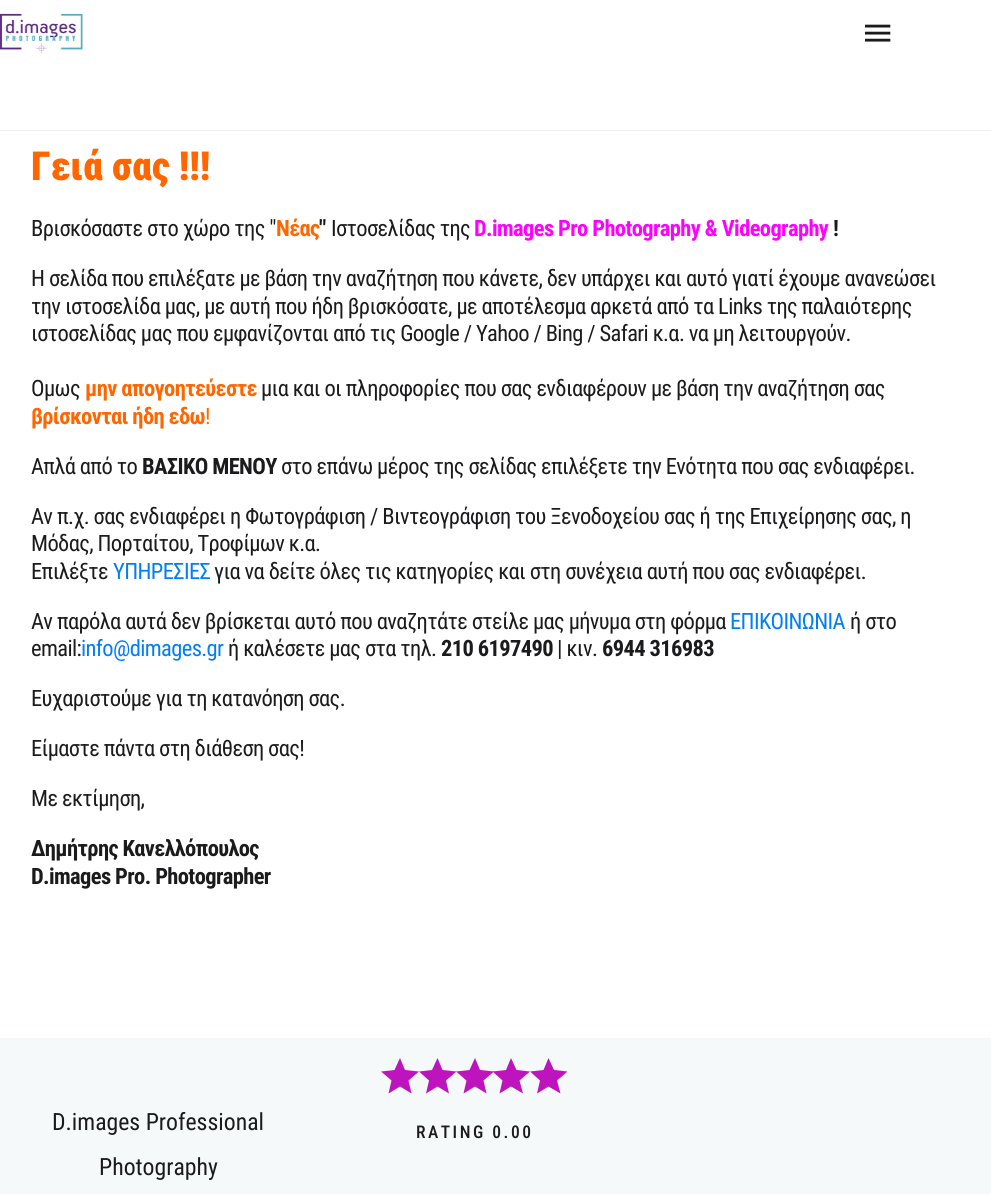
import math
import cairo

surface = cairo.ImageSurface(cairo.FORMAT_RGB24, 991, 1194)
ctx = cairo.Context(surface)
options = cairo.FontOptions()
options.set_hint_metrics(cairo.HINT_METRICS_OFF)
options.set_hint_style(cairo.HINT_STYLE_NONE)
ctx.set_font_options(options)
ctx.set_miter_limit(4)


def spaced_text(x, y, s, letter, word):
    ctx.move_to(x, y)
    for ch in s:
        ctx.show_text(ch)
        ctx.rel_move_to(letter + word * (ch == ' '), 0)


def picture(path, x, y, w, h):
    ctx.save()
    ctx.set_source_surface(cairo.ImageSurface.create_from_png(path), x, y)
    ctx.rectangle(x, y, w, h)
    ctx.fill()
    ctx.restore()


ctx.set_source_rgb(1, 1, 1)
ctx.paint()
ctx.set_source_rgb(0.933, 0.933, 0.933)
ctx.rectangle(0, 130, 991, 1)
ctx.fill()
picture("img1.png", 0, 13, 83, 41)
picture("img2.png", 865, 24, 26, 18)
ctx.select_font_face("Roboto Condensed Black")
ctx.set_font_size(40)
ctx.set_source_rgb(1, 0.4, 0)
ctx.move_to(31, 180)
ctx.show_text("Γειά σας !!!")
ctx.select_font_face("Roboto Condensed")
ctx.set_font_size(22.5)
ctx.set_source_rgb(0.106, 0.106, 0.114)
spaced_text(31, 236, "Βρισκόσαστε στο χώρο της \"", -0.62, 0)
ctx.select_font_face("Roboto Condensed", cairo.FONT_SLANT_NORMAL, cairo.FONT_WEIGHT_BOLD)
ctx.set_source_rgb(1, 0.4, 0)
spaced_text(276, 236, "Νέας", -0.62, 0)
ctx.set_source_rgb(0.106, 0.106, 0.114)
spaced_text(319, 236, "\"", -0.62, 0)
ctx.select_font_face("Roboto Condensed")
spaced_text(331, 236, "Ιστοσελίδας της", -0.62, 0)
ctx.select_font_face("Roboto Condensed", cairo.FONT_SLANT_NORMAL, cairo.FONT_WEIGHT_BOLD)
ctx.set_source_rgb(1, 0, 1)
spaced_text(474, 236, "D.images Pro Photography & Videography", -0.62, 0)
ctx.set_source_rgb(0.106, 0.106, 0.114)
spaced_text(833, 236, "!", -0.62, 0)
ctx.select_font_face("Roboto Condensed")
spaced_text(31, 286, "Η σελίδα που επιλέξατε με βάση την αναζήτηση που κάνετε, δεν υπάρχει και αυτό γιατί έχουμε ανανεώσει", -0.62, 0)
spaced_text(31, 314, "την ιστοσελίδα μας, με αυτή που ήδη βρισκόσατε, με αποτέλεσμα αρκετά από τα Links της παλαιότερης", -0.62, 0)
spaced_text(31, 341, "ιστοσελίδας μας που εμφανίζονται από τις Google / Υahoo / Bing / Safari κ.α. να μη λειτουργούν.", -0.62, 0)
spaced_text(31, 396, "Ομως", -0.62, 0)
ctx.select_font_face("Roboto Condensed", cairo.FONT_SLANT_NORMAL, cairo.FONT_WEIGHT_BOLD)
ctx.set_source_rgb(1, 0.4, 0)
spaced_text(85, 396, "μην απογοητεύεστε", -0.62, 0)
ctx.select_font_face("Roboto Condensed")
ctx.set_source_rgb(0.106, 0.106, 0.114)
spaced_text(261, 396, "μια και οι πληροφορίες που σας ενδιαφέρουν με βάση την αναζήτηση σας", -0.62, 0)
ctx.select_font_face("Roboto Condensed", cairo.FONT_SLANT_NORMAL, cairo.FONT_WEIGHT_BOLD)
ctx.set_source_rgb(1, 0.4, 0)
spaced_text(31, 424, "βρίσκονται ήδη εδω", -0.62, 0)
ctx.select_font_face("Roboto Condensed")
spaced_text(205, 424, "!", -0.62, 0)
ctx.set_source_rgb(0.106, 0.106, 0.114)
spaced_text(31, 474, "Απλά από το", -0.62, 0)
ctx.select_font_face("Roboto Condensed", cairo.FONT_SLANT_NORMAL, cairo.FONT_WEIGHT_BOLD)
spaced_text(142, 474, "ΒΑΣΙΚΟ ΜΕΝΟΥ", -0.62, 0)
ctx.select_font_face("Roboto Condensed")
spaced_text(281, 474, "στο επάνω μέρος της σελίδας επιλέξετε την Ενότητα που σας ενδιαφέρει.", -0.62, 0)
spaced_text(31, 524, "Αν π.χ. σας ενδιαφέρει η Φωτογράφιση / Βιντεογράφιση του Ξενοδοχείου σας ή της Επιχείρησης σας, η", -0.62, 0)
spaced_text(31, 551, "Μόδας, Πορταίτου, Τροφίμων κ.α.", -0.62, 0)
spaced_text(31, 579, "Επιλέξτε", -0.62, 0)
ctx.set_source_rgb(0, 0.49, 0.969)
spaced_text(113, 579, "ΥΠΗΡΕΣΙΕΣ", -0.62, 0)
ctx.set_source_rgb(0.106, 0.106, 0.114)
spaced_text(214, 579, "για να δείτε όλες τις κατηγορίες και στη συνέχεια αυτή που σας ενδιαφέρει.", -0.62, 0)
spaced_text(31, 629, "Αν παρόλα αυτά δεν βρίσκεται αυτό που αναζητάτε στείλε μας μήνυμα στη φόρμα", -0.62, 0)
ctx.set_source_rgb(0, 0.49, 0.969)
spaced_text(730, 629, "ΕΠΙΚΟΙΝΩΝΙΑ", -0.62, 0)
ctx.set_source_rgb(0.106, 0.106, 0.114)
spaced_text(850, 629, "ή στο", -0.62, 0)
spaced_text(31, 656, "email:", -0.62, 0)
ctx.set_source_rgb(0, 0.49, 0.969)
spaced_text(81, 656, "info@dimages.gr", -0.62, 0)
ctx.set_source_rgb(0.106, 0.106, 0.114)
spaced_text(228, 656, "ή καλέσετε μας στα τηλ.", -0.62, 0)
ctx.select_font_face("Roboto Condensed", cairo.FONT_SLANT_NORMAL, cairo.FONT_WEIGHT_BOLD)
spaced_text(441, 656, "210 6197490", -0.62, 0)
ctx.select_font_face("Roboto Condensed")
spaced_text(557, 656, "| κιν.", -0.62, 0)
ctx.select_font_face("Roboto Condensed", cairo.FONT_SLANT_NORMAL, cairo.FONT_WEIGHT_BOLD)
spaced_text(602, 656, "6944 316983", -0.62, 0)
ctx.select_font_face("Roboto Condensed")
spaced_text(31, 706, "Ευχαριστούμε για τη κατανόηση σας.", -0.62, 0)
spaced_text(31, 756, "Είμαστε πάντα στη διάθεση σας!", -0.62, 0)
spaced_text(31, 806, "Με εκτίμηση,", -0.62, 0)
ctx.select_font_face("Roboto Condensed", cairo.FONT_SLANT_NORMAL, cairo.FONT_WEIGHT_BOLD)
spaced_text(31, 856, "Δημήτρης Κανελλόπουλος", -0.62, 0)
spaced_text(31, 884, "D.images Pro. Photographer", -0.62, 0)
ctx.set_source_rgb(0.961, 0.973, 0.973)
ctx.rectangle(0, 1038, 991, 156)
ctx.fill()
ctx.select_font_face("Roboto Condensed")
ctx.set_font_size(23.75)
ctx.set_source_rgb(0.106, 0.106, 0.114)
ctx.move_to(52, 1130)
ctx.show_text("D.images Professional")
ctx.move_to(99, 1175)
ctx.show_text("Photography")
ctx.set_source_rgb(0.741, 0.082, 0.741)
ctx.new_path()
ctx.move_to(400, 1086.5)
ctx.line_to(388.5, 1093.5)
ctx.line_to(391.5, 1080.5)
ctx.line_to(381, 1071.5)
ctx.line_to(394.5, 1070)
ctx.line_to(400, 1058)
ctx.line_to(405, 1070)
ctx.line_to(419, 1071.5)
ctx.line_to(408.5, 1080.5)
ctx.line_to(411.5, 1093.5)
ctx.close_path()
ctx.fill()
ctx.new_path()
ctx.move_to(437.5, 1086.5)
ctx.line_to(426, 1093.5)
ctx.line_to(429, 1080.5)
ctx.line_to(419, 1071.5)
ctx.line_to(432, 1070)
ctx.line_to(437.5, 1058)
ctx.line_to(442.5, 1070)
ctx.line_to(456.5, 1071.5)
ctx.line_to(446, 1080.5)
ctx.line_to(449, 1093.5)
ctx.close_path()
ctx.fill()
ctx.new_path()
ctx.move_to(475, 1086.5)
ctx.line_to(463.5, 1093.5)
ctx.line_to(466.5, 1080.5)
ctx.line_to(456, 1071.5)
ctx.line_to(469.5, 1070)
ctx.line_to(475, 1058)
ctx.line_to(480, 1070)
ctx.line_to(494, 1071.5)
ctx.line_to(483.5, 1080.5)
ctx.line_to(486.5, 1093.5)
ctx.close_path()
ctx.fill()
ctx.new_path()
ctx.move_to(511, 1086.5)
ctx.line_to(499.5, 1093.5)
ctx.line_to(502.5, 1080.5)
ctx.line_to(492.5, 1071.5)
ctx.line_to(506, 1070)
ctx.line_to(511, 1058)
ctx.line_to(516.5, 1070)
ctx.line_to(530, 1071.5)
ctx.line_to(519.5, 1080.5)
ctx.line_to(523, 1093.5)
ctx.close_path()
ctx.fill()
ctx.new_path()
ctx.move_to(548.5, 1086.5)
ctx.line_to(537, 1093.5)
ctx.line_to(540, 1080.5)
ctx.line_to(530, 1071.5)
ctx.line_to(543.5, 1070)
ctx.line_to(548.5, 1058)
ctx.line_to(554, 1070)
ctx.line_to(567.5, 1071.5)
ctx.line_to(557, 1080.5)
ctx.line_to(560.5, 1093.5)
ctx.close_path()
ctx.fill()
ctx.select_font_face("Roboto Condensed Medium")
ctx.set_font_size(17.5)
ctx.set_source_rgb(0.106, 0.106, 0.114)
spaced_text(416, 1138, "RATING 0.00", 2.5, 0)
surface.write_to_png("page.png")
